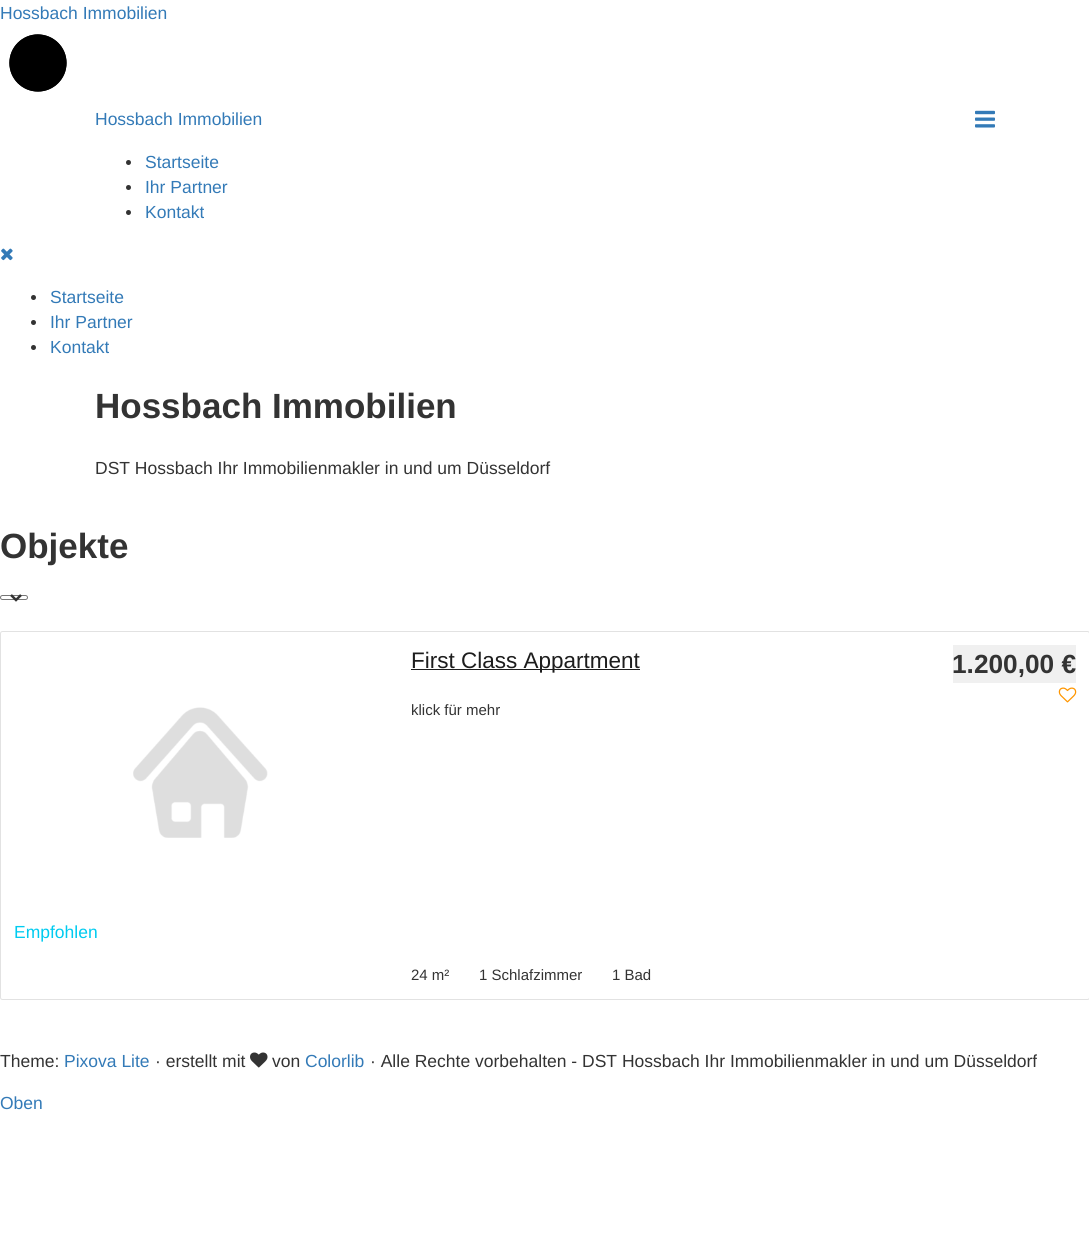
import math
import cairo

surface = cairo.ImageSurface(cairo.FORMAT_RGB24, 1089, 1246)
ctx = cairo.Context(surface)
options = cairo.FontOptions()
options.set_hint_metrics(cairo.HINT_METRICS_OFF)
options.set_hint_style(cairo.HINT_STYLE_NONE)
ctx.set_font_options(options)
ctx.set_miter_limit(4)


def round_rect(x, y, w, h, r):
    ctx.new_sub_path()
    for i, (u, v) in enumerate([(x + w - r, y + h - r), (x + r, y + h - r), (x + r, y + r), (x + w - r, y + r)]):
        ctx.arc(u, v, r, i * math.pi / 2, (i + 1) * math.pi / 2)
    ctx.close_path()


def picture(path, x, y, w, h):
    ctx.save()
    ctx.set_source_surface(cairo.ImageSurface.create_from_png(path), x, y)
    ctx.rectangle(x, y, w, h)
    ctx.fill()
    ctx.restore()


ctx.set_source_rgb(1, 1, 1)
ctx.paint()
ctx.select_font_face("Liberation Sans")
ctx.set_font_size(17.5)
ctx.set_source_rgb(0.2, 0.478, 0.718)
ctx.move_to(0, 19)
ctx.show_text("Hossbach Immobilien")
picture("img1.png", 9, 34, 58, 58)
ctx.move_to(95, 125)
ctx.show_text("Hossbach Immobilien")
picture("img2.png", 975, 110, 20, 18)
ctx.set_source_rgb(0.2, 0.2, 0.2)
ctx.arc(128.5, 162.5, 2.5, 0, 2 * math.pi)
ctx.fill()
ctx.set_source_rgb(0.2, 0.478, 0.718)
ctx.move_to(145, 168)
ctx.show_text("Startseite")
ctx.set_source_rgb(0.2, 0.2, 0.2)
ctx.new_path()
ctx.arc(128.5, 187.5, 2.5, 0, 2 * math.pi)
ctx.fill()
ctx.set_source_rgb(0.2, 0.478, 0.718)
ctx.move_to(145, 193)
ctx.show_text("Ihr Partner")
ctx.set_source_rgb(0.2, 0.2, 0.2)
ctx.new_path()
ctx.arc(128.5, 212.5, 2.5, 0, 2 * math.pi)
ctx.fill()
ctx.set_source_rgb(0.2, 0.478, 0.718)
ctx.move_to(145, 218)
ctx.show_text("Kontakt")
picture("img3.png", 1, 248, 12, 13)
ctx.set_source_rgb(0.2, 0.2, 0.2)
ctx.arc(33.5, 297.5, 2.5, 0, 2 * math.pi)
ctx.fill()
ctx.set_source_rgb(0.2, 0.478, 0.718)
ctx.move_to(50, 303)
ctx.show_text("Startseite")
ctx.set_source_rgb(0.2, 0.2, 0.2)
ctx.new_path()
ctx.arc(33.5, 322.5, 2.5, 0, 2 * math.pi)
ctx.fill()
ctx.set_source_rgb(0.2, 0.478, 0.718)
ctx.move_to(50, 328)
ctx.show_text("Ihr Partner")
ctx.set_source_rgb(0.2, 0.2, 0.2)
ctx.new_path()
ctx.arc(33.5, 347.5, 2.5, 0, 2 * math.pi)
ctx.fill()
ctx.set_source_rgb(0.2, 0.478, 0.718)
ctx.move_to(50, 353)
ctx.show_text("Kontakt")
ctx.select_font_face("Liberation Sans", cairo.FONT_SLANT_NORMAL, cairo.FONT_WEIGHT_BOLD)
ctx.set_font_size(35)
ctx.set_source_rgb(0.2, 0.2, 0.2)
ctx.move_to(95, 418)
ctx.show_text("Hossbach Immobilien")
ctx.select_font_face("Liberation Sans")
ctx.set_font_size(17.5)
ctx.move_to(95, 474)
ctx.show_text("DST Hossbach Ihr Immobilienmakler in und um Düsseldorf")
ctx.select_font_face("Liberation Sans", cairo.FONT_SLANT_NORMAL, cairo.FONT_WEIGHT_BOLD)
ctx.set_font_size(35)
ctx.move_to(0, 558)
ctx.show_text("Objekte")
round_rect(0.5, 595.5, 27, 4, 2)
ctx.set_source_rgb(0.463, 0.463, 0.463)
ctx.set_line_width(1)
ctx.stroke()
ctx.new_path()
ctx.move_to(11, 595)
ctx.line_to(16, 600)
ctx.line_to(21, 595)
ctx.set_source_rgb(0.2, 0.2, 0.2)
ctx.set_line_width(2.5)
ctx.stroke()
round_rect(0.5, 631.5, 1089, 368, 2)
ctx.set_source_rgb(0.886, 0.886, 0.886)
ctx.set_line_width(1)
ctx.stroke()
picture("img4.png", 133, 707, 135, 131)
ctx.select_font_face("Liberation Sans")
ctx.set_font_size(17.5)
ctx.set_source_rgb(0, 0.796, 0.941)
ctx.move_to(14, 938)
ctx.show_text("Empfohlen")
ctx.set_source_rgb(0.114, 0.114, 0.114)
ctx.rectangle(411, 669, 229, 1)
ctx.fill()
ctx.set_font_size(22.5)
ctx.move_to(411, 668)
ctx.show_text("First Class Appartment")
ctx.set_source_rgb(0.941, 0.941, 0.941)
ctx.rectangle(953, 645, 123, 38)
ctx.fill()
ctx.select_font_face("Liberation Sans", cairo.FONT_SLANT_NORMAL, cairo.FONT_WEIGHT_BOLD)
ctx.set_font_size(26.25)
ctx.set_source_rgb(0.2, 0.2, 0.2)
ctx.move_to(952, 673)
ctx.show_text("1.200,00 €")
picture("img5.png", 1058, 687, 19, 16)
ctx.select_font_face("Liberation Sans")
ctx.set_font_size(15)
ctx.move_to(411, 715)
ctx.show_text("klick für mehr")
ctx.move_to(411, 980)
ctx.show_text("24 m²")
ctx.move_to(479, 980)
ctx.show_text("1 Schlafzimmer")
ctx.move_to(612, 980)
ctx.show_text("1 Bad")
ctx.set_font_size(17.5)
ctx.move_to(0, 1067)
ctx.show_text("Theme:")
ctx.set_source_rgb(0.2, 0.478, 0.718)
ctx.move_to(64, 1067)
ctx.show_text("Pixova Lite")
ctx.set_source_rgb(0.2, 0.2, 0.2)
ctx.move_to(155, 1067)
ctx.show_text("· erstellt mit")
picture("img6.png", 250, 1052, 18, 16)
ctx.move_to(272, 1067)
ctx.show_text("von")
ctx.set_source_rgb(0.2, 0.478, 0.718)
ctx.move_to(305, 1067)
ctx.show_text("Colorlib")
ctx.set_source_rgb(0.2, 0.2, 0.2)
ctx.move_to(370, 1067)
ctx.show_text("· Alle Rechte vorbehalten - DST Hossbach Ihr Immobilienmakler in und um Düsseldorf")
ctx.set_source_rgb(0.2, 0.478, 0.718)
ctx.move_to(0, 1109)
ctx.show_text("Oben")
surface.write_to_png("page.png")
